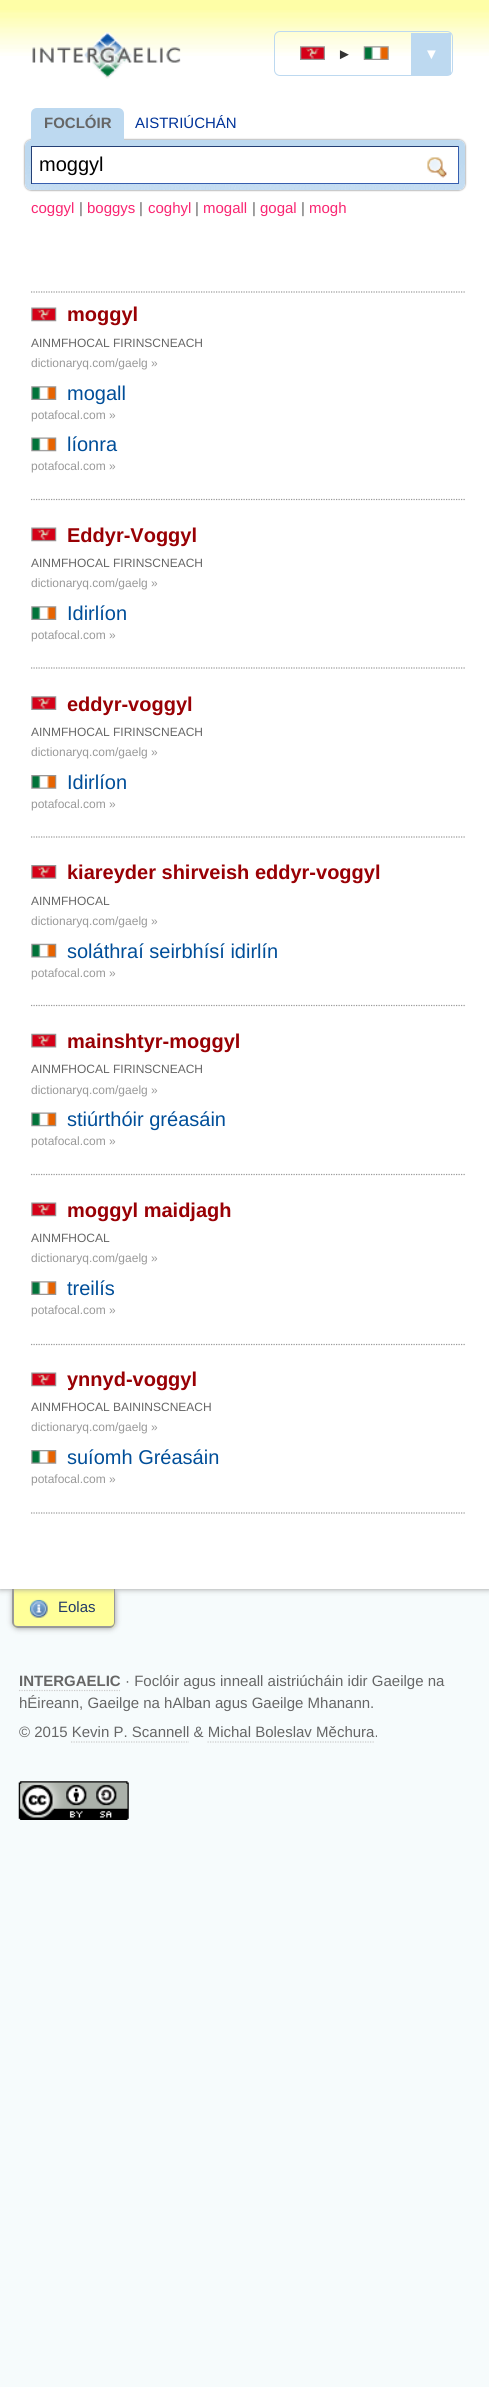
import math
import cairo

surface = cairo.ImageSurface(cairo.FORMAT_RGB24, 489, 2387)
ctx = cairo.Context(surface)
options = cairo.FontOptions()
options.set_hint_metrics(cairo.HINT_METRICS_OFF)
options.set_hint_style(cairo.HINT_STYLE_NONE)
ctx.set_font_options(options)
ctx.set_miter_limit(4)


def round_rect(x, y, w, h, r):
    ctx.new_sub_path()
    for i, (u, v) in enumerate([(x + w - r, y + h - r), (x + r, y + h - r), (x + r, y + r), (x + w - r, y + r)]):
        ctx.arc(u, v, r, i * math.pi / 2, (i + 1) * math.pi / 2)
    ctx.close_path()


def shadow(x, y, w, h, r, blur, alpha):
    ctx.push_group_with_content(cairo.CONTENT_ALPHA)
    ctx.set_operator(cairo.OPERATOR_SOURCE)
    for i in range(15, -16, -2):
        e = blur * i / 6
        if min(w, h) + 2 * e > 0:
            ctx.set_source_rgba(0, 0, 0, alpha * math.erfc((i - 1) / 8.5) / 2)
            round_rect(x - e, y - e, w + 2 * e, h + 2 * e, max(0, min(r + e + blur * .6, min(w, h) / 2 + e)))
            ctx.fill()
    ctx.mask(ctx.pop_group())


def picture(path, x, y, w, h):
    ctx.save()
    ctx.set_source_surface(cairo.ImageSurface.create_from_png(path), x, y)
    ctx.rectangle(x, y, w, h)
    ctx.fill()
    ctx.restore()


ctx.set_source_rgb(0.961, 0.984, 0.988)
ctx.paint()
ctx.set_source_rgb(0.6, 0.6, 0.6)
shadow(13, 1589, 102, 39, 5, 3, 1)
ctx.set_source_rgb(1, 1, 0.6)
ctx.new_path()
ctx.move_to(13, 1589)
ctx.line_to(115, 1589)
ctx.line_to(115, 1623)
ctx.curve_to(115, 1626, 113, 1628, 110, 1628)
ctx.line_to(18, 1628)
ctx.curve_to(15, 1628, 13, 1626, 13, 1623)
ctx.close_path()
ctx.fill()
picture("img16.png", 29, 1599, 19, 19)
ctx.set_source_rgb(0.6, 0.6, 0.6)
ctx.set_fill_rule(cairo.FILL_RULE_EVEN_ODD)
ctx.new_path()
ctx.move_to(12, 1589)
ctx.line_to(115, 1589)
ctx.line_to(115, 1622)
ctx.curve_to(115, 1625, 113, 1628, 110, 1628)
ctx.line_to(18, 1628)
ctx.curve_to(15, 1628, 12, 1625, 12, 1622)
ctx.close_path()
ctx.move_to(14, 1589)
ctx.line_to(114, 1589)
ctx.line_to(114, 1622)
ctx.curve_to(114, 1625, 112, 1626, 110, 1626)
ctx.line_to(18, 1626)
ctx.curve_to(15, 1626, 14, 1625, 14, 1622)
ctx.close_path()
ctx.fill()
ctx.set_source_rgb(0.6, 0.6, 0.6)
shadow(0, 0, 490, 1589, 0, 3, 1)
ctx.set_source_rgb(1, 1, 1)
ctx.rectangle(0, 56, 489, 1533)
ctx.fill()
picture("img1.png", 0, 0, 489, 56)
picture("img2.png", 32, 32, 149, 47)
round_rect(274.5, 31.5, 178, 44, 5.5)
ctx.set_source_rgb(0.741, 0.851, 0.941)
ctx.set_line_width(1)
ctx.stroke()
picture("img3.png", 300, 46, 25, 14)
ctx.select_font_face("Liberation Sans")
ctx.set_font_size(15)
ctx.set_source_rgb(0.2, 0.2, 0.2)
ctx.move_to(337, 59)
ctx.show_text("►")
picture("img4.png", 363, 46, 26, 14)
ctx.set_source_rgb(0.741, 0.851, 0.941)
ctx.rectangle(411, 33, 40, 42)
ctx.fill()
ctx.set_source_rgb(1, 1, 1)
ctx.move_to(424, 59)
ctx.show_text("▼")
ctx.set_source_rgb(0.4, 0.4, 0.4)
shadow(25, 140, 440, 50, 6, 1, 1)
ctx.set_source_rgb(1, 1, 1)
round_rect(25, 140, 440, 50, 6)
ctx.fill()
picture("img5.png", 25, 140, 440, 50)
ctx.set_source_rgb(0.741, 0.851, 0.941)
ctx.new_path()
ctx.move_to(37, 108)
ctx.line_to(118, 108)
ctx.curve_to(121.5, 108, 124, 110.5, 124, 114)
ctx.line_to(124, 144)
ctx.line_to(31, 144)
ctx.line_to(31, 114)
ctx.curve_to(31, 110.5, 33.5, 108, 37, 108)
ctx.close_path()
ctx.fill()
ctx.select_font_face("Liberation Sans", cairo.FONT_SLANT_NORMAL, cairo.FONT_WEIGHT_BOLD)
ctx.set_source_rgb(0.4, 0.4, 0.4)
ctx.move_to(44, 128)
ctx.show_text("FOCLÓIR")
ctx.select_font_face("Liberation Sans")
ctx.set_source_rgb(0, 0.2, 0.6)
ctx.move_to(135, 128)
ctx.show_text("AISTRIÚCHÁN")
ctx.set_source_rgb(1, 1, 1)
ctx.rectangle(32, 147, 426, 36)
ctx.fill()
ctx.set_source_rgb(0.141, 0.247, 0.459)
ctx.rectangle(31, 146, 428, 1)
ctx.fill()
ctx.set_source_rgb(0.212, 0.369, 0.686)
ctx.rectangle(458, 146, 1, 38)
ctx.fill()
ctx.rectangle(31, 183, 428, 1)
ctx.fill()
ctx.set_source_rgb(0.141, 0.247, 0.459)
ctx.rectangle(31, 146, 1, 38)
ctx.fill()
ctx.set_font_size(20)
ctx.set_source_rgb(0, 0, 0)
ctx.move_to(39, 171)
ctx.show_text("moggyl")
picture("img6.png", 427, 157, 20, 21)
ctx.set_font_size(15)
ctx.set_source_rgb(0.976, 0.149, 0.447)
ctx.move_to(31, 213)
ctx.show_text("coggyl")
ctx.set_source_rgb(0.4, 0.4, 0.4)
ctx.move_to(79, 213)
ctx.show_text("|")
ctx.set_source_rgb(0.976, 0.149, 0.447)
ctx.move_to(87, 213)
ctx.show_text("boggys")
ctx.set_source_rgb(0.4, 0.4, 0.4)
ctx.move_to(139, 213)
ctx.show_text("|")
ctx.set_source_rgb(0.976, 0.149, 0.447)
ctx.move_to(148, 213)
ctx.show_text("coghyl")
ctx.set_source_rgb(0.4, 0.4, 0.4)
ctx.move_to(195, 213)
ctx.show_text("|")
ctx.set_source_rgb(0.976, 0.149, 0.447)
ctx.move_to(203, 213)
ctx.show_text("mogall")
ctx.set_source_rgb(0.4, 0.4, 0.4)
ctx.move_to(252, 213)
ctx.show_text("|")
ctx.set_source_rgb(0.976, 0.149, 0.447)
ctx.move_to(260, 213)
ctx.show_text("gogal")
ctx.set_source_rgb(0.4, 0.4, 0.4)
ctx.move_to(301, 213)
ctx.show_text("|")
ctx.set_source_rgb(0.976, 0.149, 0.447)
ctx.move_to(309, 213)
ctx.show_text("mogh")
ctx.new_path()
ctx.move_to(31, 292)
ctx.line_to(465, 292)
ctx.set_source_rgb(0.6, 0.6, 0.6)
ctx.set_line_width(1.2)
ctx.set_dash([1.25, 1.25])
ctx.stroke()
ctx.new_path()
ctx.move_to(31, 499.5)
ctx.line_to(465, 499.5)
ctx.stroke()
picture("img7.png", 31, 307, 26, 15)
ctx.select_font_face("Liberation Sans", cairo.FONT_SLANT_NORMAL, cairo.FONT_WEIGHT_BOLD)
ctx.set_font_size(20)
ctx.set_source_rgb(0.6, 0, 0.016)
ctx.move_to(67, 321)
ctx.show_text("moggyl")
ctx.select_font_face("Liberation Sans")
ctx.set_font_size(12)
ctx.set_source_rgb(0.4, 0.4, 0.4)
ctx.move_to(31, 347)
ctx.show_text("AINMFHOCAL FIRINSCNEACH")
ctx.set_source_rgb(0.6, 0.6, 0.6)
ctx.move_to(31, 367)
ctx.show_text("dictionaryq.com/gaelg »")
picture("img8.png", 31, 386, 26, 14)
ctx.set_font_size(20)
ctx.set_source_rgb(0, 0.306, 0.6)
ctx.move_to(67, 400)
ctx.show_text("mogall")
ctx.set_font_size(12)
ctx.set_source_rgb(0.6, 0.6, 0.6)
ctx.move_to(31, 419)
ctx.show_text("potafocal.com »")
picture("img9.png", 31, 437, 26, 15)
ctx.set_font_size(20)
ctx.set_source_rgb(0, 0.306, 0.6)
ctx.move_to(67, 451)
ctx.show_text("líonra")
ctx.set_font_size(12)
ctx.set_source_rgb(0.6, 0.6, 0.6)
ctx.move_to(31, 470)
ctx.show_text("potafocal.com »")
ctx.new_path()
ctx.move_to(31, 668)
ctx.line_to(465, 668)
ctx.stroke()
picture("img7.png", 31, 527, 26, 15)
ctx.select_font_face("Liberation Sans", cairo.FONT_SLANT_NORMAL, cairo.FONT_WEIGHT_BOLD)
ctx.set_font_size(20)
ctx.set_source_rgb(0.6, 0, 0.016)
ctx.move_to(67, 542)
ctx.show_text("Eddyr-Voggyl")
ctx.select_font_face("Liberation Sans")
ctx.set_font_size(12)
ctx.set_source_rgb(0.4, 0.4, 0.4)
ctx.move_to(31, 567)
ctx.show_text("AINMFHOCAL FIRINSCNEACH")
ctx.set_source_rgb(0.6, 0.6, 0.6)
ctx.move_to(31, 587)
ctx.show_text("dictionaryq.com/gaelg »")
picture("img8.png", 31, 606, 26, 14)
ctx.set_font_size(20)
ctx.set_source_rgb(0, 0.306, 0.6)
ctx.move_to(67, 620)
ctx.show_text("Idirlíon")
ctx.set_font_size(12)
ctx.set_source_rgb(0.6, 0.6, 0.6)
ctx.move_to(31, 639)
ctx.show_text("potafocal.com »")
ctx.new_path()
ctx.move_to(31, 837)
ctx.line_to(465, 837)
ctx.stroke()
picture("img10.png", 31, 696, 26, 14)
ctx.select_font_face("Liberation Sans", cairo.FONT_SLANT_NORMAL, cairo.FONT_WEIGHT_BOLD)
ctx.set_font_size(20)
ctx.set_source_rgb(0.6, 0, 0.016)
ctx.move_to(67, 711)
ctx.show_text("eddyr-voggyl")
ctx.select_font_face("Liberation Sans")
ctx.set_font_size(12)
ctx.set_source_rgb(0.4, 0.4, 0.4)
ctx.move_to(31, 736)
ctx.show_text("AINMFHOCAL FIRINSCNEACH")
ctx.set_source_rgb(0.6, 0.6, 0.6)
ctx.move_to(31, 756)
ctx.show_text("dictionaryq.com/gaelg »")
picture("img11.png", 31, 775, 26, 14)
ctx.set_font_size(20)
ctx.set_source_rgb(0, 0.306, 0.6)
ctx.move_to(67, 789)
ctx.show_text("Idirlíon")
ctx.set_font_size(12)
ctx.set_source_rgb(0.6, 0.6, 0.6)
ctx.move_to(31, 808)
ctx.show_text("potafocal.com »")
ctx.new_path()
ctx.move_to(31, 1005.5)
ctx.line_to(465, 1005.5)
ctx.stroke()
picture("img12.png", 31, 865, 26, 14)
ctx.select_font_face("Liberation Sans", cairo.FONT_SLANT_NORMAL, cairo.FONT_WEIGHT_BOLD)
ctx.set_font_size(20)
ctx.set_source_rgb(0.6, 0, 0.016)
ctx.move_to(67, 879)
ctx.show_text("kiareyder shirveish eddyr-voggyl")
ctx.select_font_face("Liberation Sans")
ctx.set_font_size(12)
ctx.set_source_rgb(0.4, 0.4, 0.4)
ctx.move_to(31, 905)
ctx.show_text("AINMFHOCAL")
ctx.set_source_rgb(0.6, 0.6, 0.6)
ctx.move_to(31, 925)
ctx.show_text("dictionaryq.com/gaelg »")
picture("img13.png", 31, 943, 26, 15)
ctx.set_font_size(20)
ctx.set_source_rgb(0, 0.306, 0.6)
ctx.move_to(67, 958)
ctx.show_text("soláthraí seirbhísí idirlín")
ctx.set_font_size(12)
ctx.set_source_rgb(0.6, 0.6, 0.6)
ctx.move_to(31, 977)
ctx.show_text("potafocal.com »")
ctx.new_path()
ctx.move_to(31, 1174.5)
ctx.line_to(465, 1174.5)
ctx.stroke()
picture("img14.png", 31, 1033, 26, 15)
ctx.select_font_face("Liberation Sans", cairo.FONT_SLANT_NORMAL, cairo.FONT_WEIGHT_BOLD)
ctx.set_font_size(20)
ctx.set_source_rgb(0.6, 0, 0.016)
ctx.move_to(67, 1048)
ctx.show_text("mainshtyr-moggyl")
ctx.select_font_face("Liberation Sans")
ctx.set_font_size(12)
ctx.set_source_rgb(0.4, 0.4, 0.4)
ctx.move_to(31, 1073)
ctx.show_text("AINMFHOCAL FIRINSCNEACH")
ctx.set_source_rgb(0.6, 0.6, 0.6)
ctx.move_to(31, 1094)
ctx.show_text("dictionaryq.com/gaelg »")
picture("img9.png", 31, 1112, 26, 15)
ctx.set_font_size(20)
ctx.set_source_rgb(0, 0.306, 0.6)
ctx.move_to(67, 1126)
ctx.show_text("stiúrthóir gréasáin")
ctx.set_font_size(12)
ctx.set_source_rgb(0.6, 0.6, 0.6)
ctx.move_to(31, 1145)
ctx.show_text("potafocal.com »")
ctx.new_path()
ctx.move_to(31, 1344.5)
ctx.line_to(465, 1344.5)
ctx.stroke()
picture("img7.png", 31, 1202, 26, 15)
ctx.select_font_face("Liberation Sans", cairo.FONT_SLANT_NORMAL, cairo.FONT_WEIGHT_BOLD)
ctx.set_font_size(20)
ctx.set_source_rgb(0.6, 0, 0.016)
ctx.move_to(67, 1217)
ctx.show_text("moggyl maidjagh")
ctx.select_font_face("Liberation Sans")
ctx.set_font_size(12)
ctx.set_source_rgb(0.4, 0.4, 0.4)
ctx.move_to(31, 1242)
ctx.show_text("AINMFHOCAL")
ctx.set_source_rgb(0.6, 0.6, 0.6)
ctx.move_to(31, 1262)
ctx.show_text("dictionaryq.com/gaelg »")
picture("img8.png", 31, 1281, 26, 14)
ctx.set_font_size(20)
ctx.set_source_rgb(0, 0.306, 0.6)
ctx.move_to(67, 1295)
ctx.show_text("treilís")
ctx.set_font_size(12)
ctx.set_source_rgb(0.6, 0.6, 0.6)
ctx.move_to(31, 1314)
ctx.show_text("potafocal.com »")
ctx.new_path()
ctx.move_to(31, 1513)
ctx.line_to(465, 1513)
ctx.stroke()
picture("img7.png", 31, 1372, 26, 15)
ctx.select_font_face("Liberation Sans", cairo.FONT_SLANT_NORMAL, cairo.FONT_WEIGHT_BOLD)
ctx.set_font_size(20)
ctx.set_source_rgb(0.6, 0, 0.016)
ctx.move_to(67, 1386)
ctx.show_text("ynnyd-voggyl")
ctx.select_font_face("Liberation Sans")
ctx.set_font_size(12)
ctx.set_source_rgb(0.4, 0.4, 0.4)
ctx.move_to(31, 1411)
ctx.show_text("AINMFHOCAL BAININSCNEACH")
ctx.set_source_rgb(0.6, 0.6, 0.6)
ctx.move_to(31, 1431)
ctx.show_text("dictionaryq.com/gaelg »")
picture("img15.png", 31, 1450, 26, 14)
ctx.set_font_size(20)
ctx.set_source_rgb(0, 0.306, 0.6)
ctx.move_to(67, 1464)
ctx.show_text("suíomh Gréasáin")
ctx.set_font_size(12)
ctx.set_source_rgb(0.6, 0.6, 0.6)
ctx.move_to(31, 1483)
ctx.show_text("potafocal.com »")
ctx.set_font_size(15)
ctx.set_source_rgb(0.129, 0.224, 0.404)
ctx.move_to(58, 1612)
ctx.show_text("Eolas")
ctx.select_font_face("Liberation Sans", cairo.FONT_SLANT_NORMAL, cairo.FONT_WEIGHT_BOLD)
ctx.set_source_rgb(0.4, 0.4, 0.4)
ctx.move_to(19, 1686)
ctx.show_text("INTERGAELIC")
ctx.new_path()
ctx.move_to(19, 1690.5)
ctx.line_to(120, 1690.5)
ctx.set_source_rgb(0.8, 0.8, 0.8)
ctx.stroke()
ctx.select_font_face("Liberation Sans")
ctx.set_source_rgb(0.4, 0.4, 0.4)
ctx.move_to(125, 1686)
ctx.show_text("· Foclóir agus inneall aistriúcháin idir Gaeilge na")
ctx.move_to(19, 1708)
ctx.show_text("hÉireann, Gaeilge na hAlban agus Gaeilge Mhanann.")
ctx.move_to(19, 1737)
ctx.show_text("© 2015 Kevin P. Scannell & Michal Boleslav Měchura.")
ctx.new_path()
ctx.move_to(71, 1742)
ctx.line_to(189, 1742)
ctx.set_source_rgb(0.8, 0.8, 0.8)
ctx.stroke()
ctx.new_path()
ctx.move_to(207.5, 1742)
ctx.line_to(374, 1742)
ctx.stroke()
picture("img17.png", 18, 1781, 111, 39)
surface.write_to_png("page.png")
